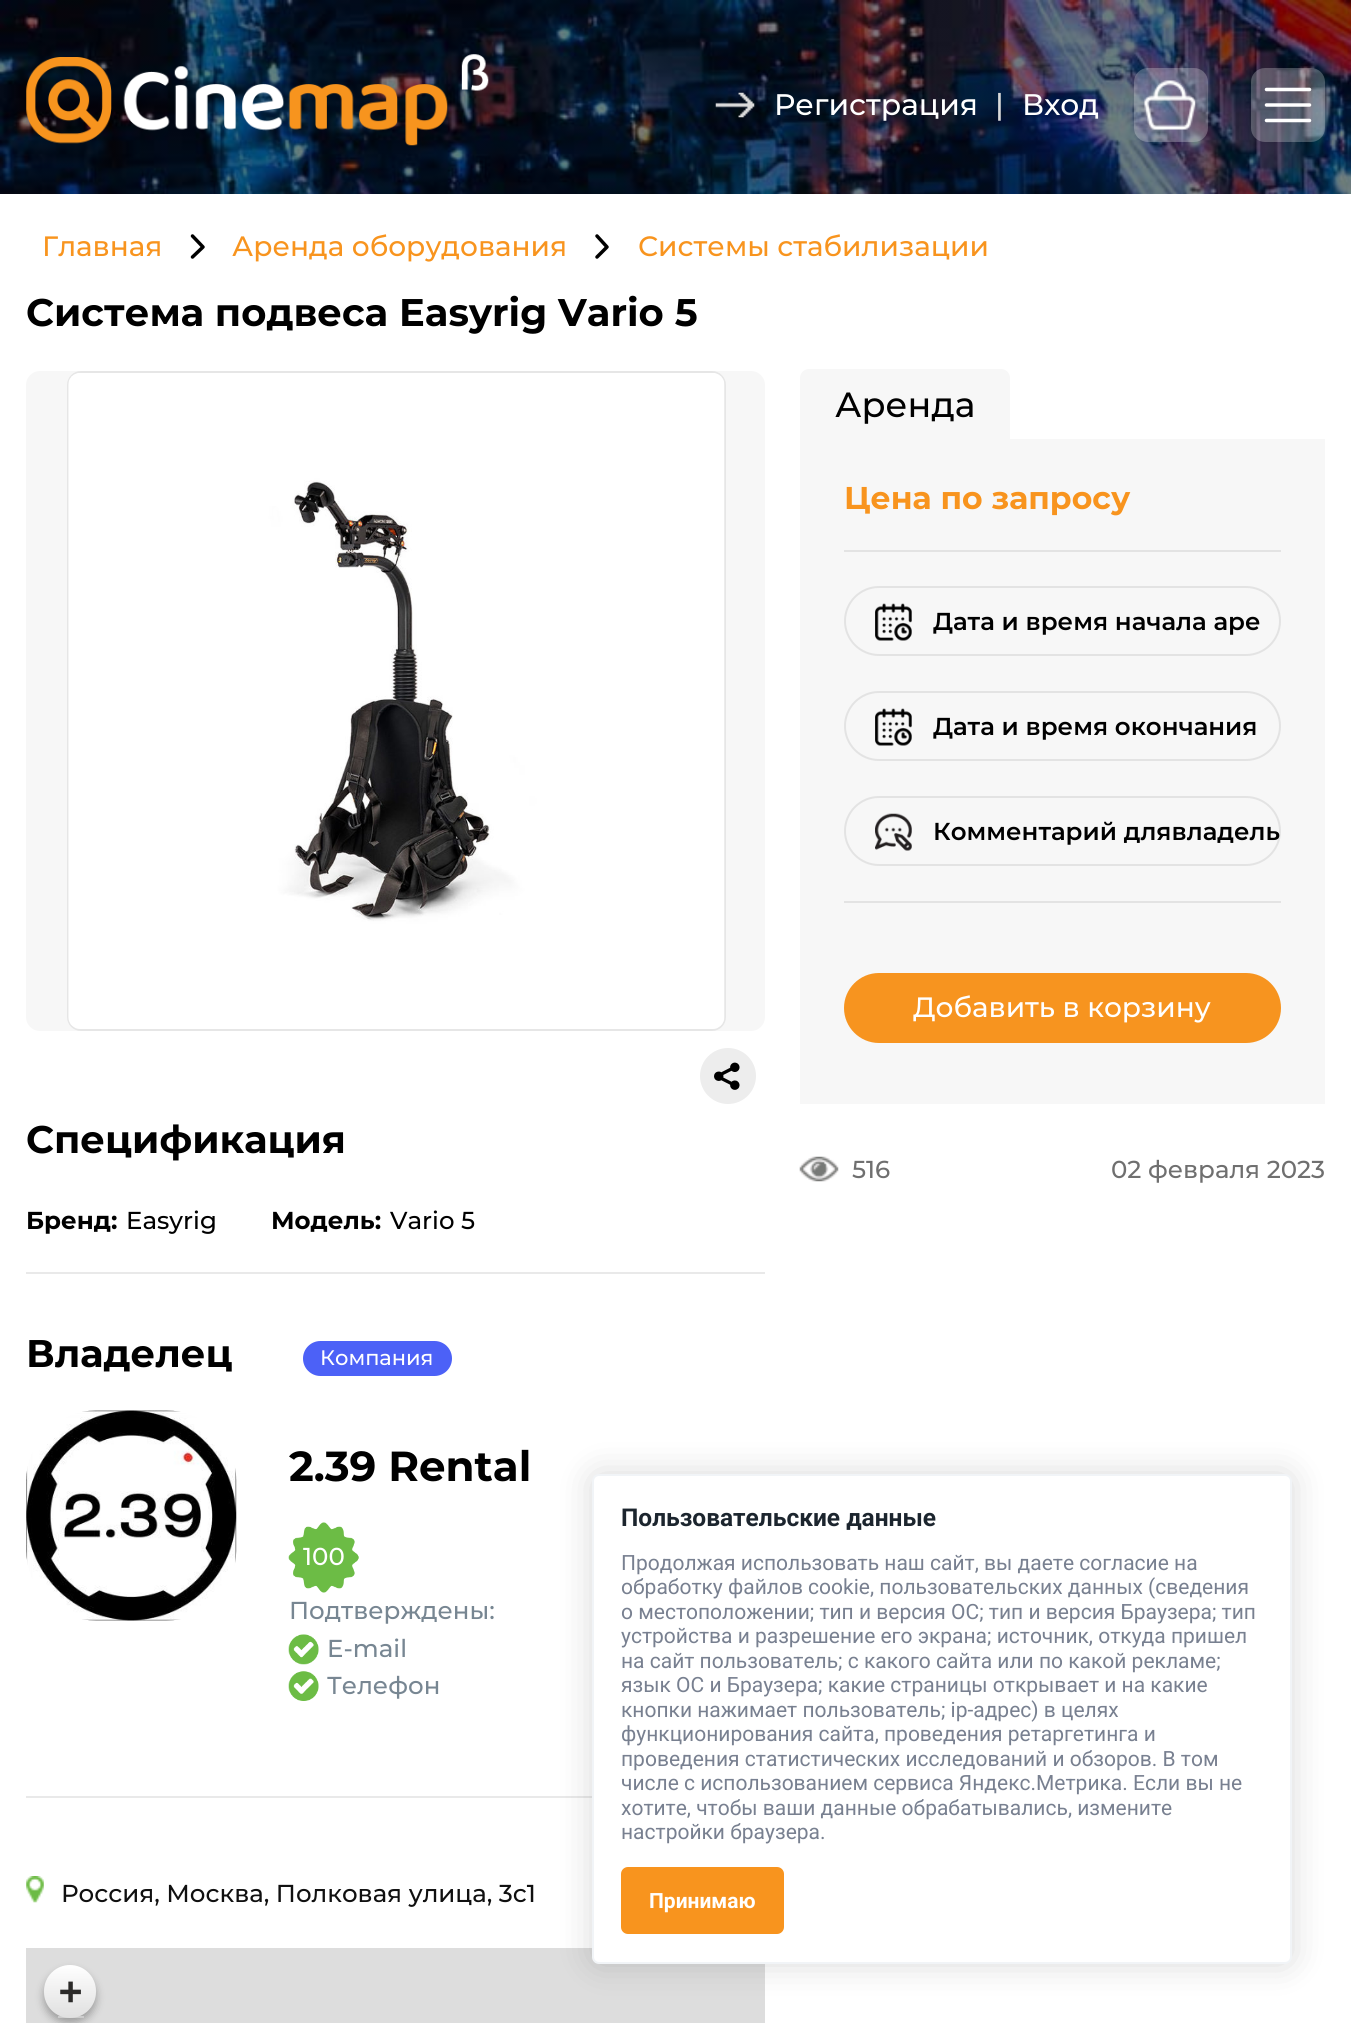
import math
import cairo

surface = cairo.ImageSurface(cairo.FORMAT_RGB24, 1351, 2023)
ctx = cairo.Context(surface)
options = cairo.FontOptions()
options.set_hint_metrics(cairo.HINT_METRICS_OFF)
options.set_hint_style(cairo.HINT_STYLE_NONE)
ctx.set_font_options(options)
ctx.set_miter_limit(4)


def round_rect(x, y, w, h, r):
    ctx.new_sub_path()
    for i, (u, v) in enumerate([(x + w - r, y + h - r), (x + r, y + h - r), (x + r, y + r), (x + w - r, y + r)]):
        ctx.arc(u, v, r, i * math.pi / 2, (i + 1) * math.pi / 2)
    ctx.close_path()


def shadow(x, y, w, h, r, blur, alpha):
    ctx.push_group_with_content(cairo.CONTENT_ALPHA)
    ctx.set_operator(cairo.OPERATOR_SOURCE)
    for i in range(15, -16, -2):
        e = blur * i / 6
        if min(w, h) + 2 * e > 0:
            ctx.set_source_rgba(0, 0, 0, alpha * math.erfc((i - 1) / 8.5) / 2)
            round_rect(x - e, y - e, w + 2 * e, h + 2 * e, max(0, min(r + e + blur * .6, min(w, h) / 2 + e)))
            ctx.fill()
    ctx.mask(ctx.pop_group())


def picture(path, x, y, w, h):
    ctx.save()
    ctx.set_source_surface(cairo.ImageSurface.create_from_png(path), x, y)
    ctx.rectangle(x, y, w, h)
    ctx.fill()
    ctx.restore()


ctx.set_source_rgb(1, 1, 1)
ctx.paint()
picture("img1.png", 0, 0, 1351, 194)
picture("img2.png", 26, 54, 463, 92)
picture("img3.png", 715, 92, 40, 26)
ctx.select_font_face("Montserrat Medium")
ctx.set_font_size(29.75)
ctx.set_source_rgb(1, 1, 1)
ctx.move_to(774, 115)
ctx.show_text("Регистрация")
ctx.set_source_rgb(0.855, 0.855, 0.855)
ctx.move_to(995, 115)
ctx.show_text("|")
ctx.set_source_rgb(1, 1, 1)
ctx.move_to(1022, 115)
ctx.show_text("Вход")
ctx.set_source_rgba(1, 1, 1, 0.25)
round_rect(1134, 68, 74, 74, 14)
ctx.fill()
picture("img4.png", 1144, 80, 52, 50)
round_rect(1251, 68, 74, 74, 14)
ctx.fill()
ctx.new_path()
ctx.move_to(1266.5, 120.5)
ctx.line_to(1309.5, 120.5)
ctx.move_to(1266.5, 105)
ctx.line_to(1309.5, 105)
ctx.move_to(1266.5, 89.5)
ctx.line_to(1309.5, 89.5)
ctx.set_source_rgb(1, 1, 1)
ctx.set_line_width(3.5)
ctx.set_line_cap(cairo.LINE_CAP_ROUND)
ctx.set_line_join(cairo.LINE_JOIN_ROUND)
ctx.stroke()
ctx.set_font_size(28)
ctx.set_source_rgb(0.969, 0.58, 0.118)
ctx.move_to(42, 256)
ctx.show_text("Главная")
ctx.new_path()
ctx.move_to(192.5, 257)
ctx.line_to(203, 247)
ctx.line_to(192.5, 236)
ctx.set_source_rgb(0, 0, 0)
ctx.stroke()
ctx.set_source_rgb(0.969, 0.58, 0.118)
ctx.move_to(232, 256)
ctx.show_text("Аренда оборудования")
ctx.new_path()
ctx.move_to(597, 257)
ctx.line_to(607, 247)
ctx.line_to(597, 236)
ctx.set_source_rgb(0, 0, 0)
ctx.stroke()
ctx.set_source_rgb(0.969, 0.58, 0.118)
ctx.move_to(638, 256)
ctx.show_text("Системы стабилизации")
ctx.select_font_face("Montserrat", cairo.FONT_SLANT_NORMAL, cairo.FONT_WEIGHT_BOLD)
ctx.set_font_size(38.5)
ctx.set_source_rgb(0, 0, 0)
ctx.move_to(26, 326)
ctx.show_text("Система подвеса Easyrig Vario 5")
ctx.set_source_rgb(0.965, 0.965, 0.965)
round_rect(26, 371, 739, 660, 14)
ctx.fill()
round_rect(68, 372, 657, 658, 13)
ctx.set_source_rgb(0.902, 0.902, 0.902)
ctx.set_line_width(2)
ctx.set_line_cap(cairo.LINE_CAP_BUTT)
ctx.set_line_join(cairo.LINE_JOIN_MITER)
ctx.stroke()
picture("img5.png", 68, 373, 657, 656)
ctx.set_source_rgb(0.929, 0.929, 0.929)
ctx.arc(728, 1076, 28, 0, 2 * math.pi)
ctx.fill()
picture("img6.png", 714, 1062, 26, 28)
ctx.set_source_rgb(0.914, 0.914, 0.914)
ctx.rectangle(26, 1272, 739, 2)
ctx.fill()
ctx.set_source_rgb(0, 0, 0)
ctx.move_to(26, 1153)
ctx.show_text("Спецификация")
ctx.set_font_size(24.5)
ctx.move_to(26, 1229)
ctx.show_text("Бренд:")
ctx.select_font_face("Montserrat Medium")
ctx.move_to(126, 1229)
ctx.show_text("Easyrig")
ctx.select_font_face("Montserrat", cairo.FONT_SLANT_NORMAL, cairo.FONT_WEIGHT_BOLD)
ctx.move_to(271, 1229)
ctx.show_text("Модель:")
ctx.select_font_face("Montserrat Medium")
ctx.move_to(390, 1229)
ctx.show_text("Vario 5")
ctx.set_source_rgb(0.914, 0.914, 0.914)
ctx.rectangle(26, 1796, 566, 2)
ctx.fill()
ctx.select_font_face("Montserrat", cairo.FONT_SLANT_NORMAL, cairo.FONT_WEIGHT_BOLD)
ctx.set_font_size(38.5)
ctx.set_source_rgb(0, 0, 0)
ctx.move_to(26, 1367)
ctx.show_text("Владелец")
ctx.set_source_rgb(0.298, 0.38, 0.965)
round_rect(303, 1341, 149, 35, 17.5)
ctx.fill()
ctx.select_font_face("Montserrat Medium")
ctx.set_font_size(21)
ctx.set_source_rgb(1, 1, 1)
ctx.move_to(320, 1365)
ctx.show_text("Компания")
picture("img7.png", 26, 1410, 211, 211)
ctx.select_font_face("Montserrat", cairo.FONT_SLANT_NORMAL, cairo.FONT_WEIGHT_BOLD)
ctx.set_font_size(42)
ctx.set_source_rgb(0, 0, 0)
ctx.move_to(289, 1481)
ctx.show_text("2.39 Rental")
picture("img8.png", 288, 1522, 71, 71)
ctx.select_font_face("Montserrat Medium")
ctx.set_font_size(24.5)
ctx.set_source_rgb(1, 1, 1)
ctx.move_to(303, 1565)
ctx.show_text("100")
ctx.set_source_rgb(0.467, 0.525, 0.573)
ctx.move_to(289, 1619)
ctx.show_text("Подтверждены:")
picture("img9.png", 288, 1634, 31, 31)
ctx.move_to(327, 1657)
ctx.show_text("E-mail")
picture("img10.png", 288, 1671, 31, 30)
ctx.move_to(327, 1694)
ctx.show_text("Телефон")
picture("img11.png", 26, 1876, 18, 27)
ctx.set_source_rgb(0.063, 0.063, 0.063)
ctx.move_to(61, 1902)
ctx.show_text("Россия, Москва, Полковая улица, 3с1")
ctx.set_source_rgb(0.867, 0.867, 0.867)
ctx.rectangle(26, 1948, 739, 75)
ctx.fill()
ctx.set_source_rgb(0, 0, 0)
shadow(44, 1971, 52, 52, 26, 4.5, 0.3)
ctx.set_source_rgb(0.8, 0.8, 0.8)
ctx.rectangle(58, 2016, 26, 2)
ctx.fill()
gradient = cairo.LinearGradient(70, 1965, 70, 2018)
gradient.add_color_stop_rgba(0, 1, 1, 1, 1)
gradient.add_color_stop_rgba(1, 0.878, 0.878, 0.878, 1)
ctx.set_source(gradient)
round_rect(44, 1965, 52, 53, 26)
ctx.fill()
ctx.select_font_face("DejaVu Sans Mono", cairo.FONT_SLANT_NORMAL, cairo.FONT_WEIGHT_BOLD)
ctx.set_font_size(38.5)
ctx.set_source_rgb(0.169, 0.165, 0.161)
ctx.move_to(59, 2004)
ctx.show_text("+")
ctx.set_source_rgb(0.965, 0.965, 0.965)
ctx.new_path()
ctx.move_to(809, 369)
ctx.line_to(1001, 369)
ctx.curve_to(1006, 369, 1010, 373, 1010, 378)
ctx.line_to(1010, 439)
ctx.line_to(800, 439)
ctx.line_to(800, 378)
ctx.curve_to(800, 373, 804, 369, 809, 369)
ctx.close_path()
ctx.fill()
ctx.select_font_face("Montserrat Medium")
ctx.set_font_size(35)
ctx.set_source_rgb(0, 0, 0)
ctx.move_to(835, 417)
ctx.show_text("Аренда")
ctx.set_source_rgb(0.965, 0.965, 0.965)
ctx.rectangle(800, 439, 525, 665)
ctx.fill()
ctx.set_source_rgb(0.89, 0.89, 0.89)
ctx.rectangle(844, 550, 437, 2)
ctx.fill()
ctx.select_font_face("Montserrat", cairo.FONT_SLANT_NORMAL, cairo.FONT_WEIGHT_BOLD)
ctx.set_font_size(31.5)
ctx.set_source_rgb(0.969, 0.58, 0.118)
ctx.move_to(844, 509)
ctx.show_text("Цена по запросу")
ctx.set_source_rgb(0.89, 0.89, 0.89)
ctx.rectangle(844, 901, 437, 2)
ctx.fill()
round_rect(845, 587, 435, 68, 34)
ctx.stroke()
picture("img12.png", 875, 603, 37, 38)
ctx.select_font_face("Montserrat SemiBold")
ctx.set_font_size(24.5)
ctx.set_source_rgb(0, 0, 0)
ctx.move_to(933, 630)
ctx.show_text("Дата и время начала аре")
round_rect(845, 692, 435, 68, 34)
ctx.set_source_rgb(0.89, 0.89, 0.89)
ctx.stroke()
picture("img12.png", 875, 708, 37, 38)
ctx.set_source_rgb(0, 0, 0)
ctx.move_to(933, 735)
ctx.show_text("Дата и время окончания")
round_rect(845, 797, 435, 68, 34)
ctx.set_source_rgb(0.89, 0.89, 0.89)
ctx.stroke()
picture("img13.png", 875, 813, 37, 38)
ctx.set_source_rgb(0, 0, 0)
ctx.move_to(933, 840)
ctx.show_text("Комментарий длявладель")
ctx.set_source_rgb(0.965, 0.58, 0.122)
round_rect(844, 973, 437, 70, 35)
ctx.fill()
ctx.select_font_face("Montserrat Medium")
ctx.set_font_size(28)
ctx.set_source_rgb(1, 1, 1)
ctx.move_to(913, 1017)
ctx.show_text("Добавить в корзину")
picture("img14.png", 799, 1156, 40, 26)
ctx.set_font_size(24.5)
ctx.set_source_rgb(0.435, 0.435, 0.435)
ctx.move_to(852, 1178)
ctx.show_text("516")
ctx.move_to(1111, 1178)
ctx.show_text("02 февраля 2023")
ctx.set_source_rgb(0, 0, 0)
shadow(592, 1474, 700, 490, 7, 17.5, 0.15)
ctx.set_source_rgb(1, 1, 1)
round_rect(593, 1475, 698, 488, 6)
ctx.fill_preserve()
ctx.set_source_rgb(0.945, 0.957, 0.965)
ctx.stroke()
ctx.select_font_face("Roboto", cairo.FONT_SLANT_NORMAL, cairo.FONT_WEIGHT_BOLD)
ctx.set_source_rgb(0.11, 0.145, 0.18)
ctx.move_to(621, 1526)
ctx.show_text("Пользовательские данные")
ctx.select_font_face("Roboto")
ctx.set_font_size(21)
ctx.set_source_rgb(0.471, 0.502, 0.565)
ctx.move_to(621, 1570)
ctx.show_text("Продолжая использовать наш сайт, вы даете согласие на")
ctx.move_to(621, 1594)
ctx.show_text("обработку файлов cookie, пользовательских данных (сведения")
ctx.move_to(621, 1619)
ctx.show_text("о местоположении; тип и версия ОС; тип и версия Браузера; тип")
ctx.move_to(621, 1643)
ctx.show_text("устройства и разрешение его экрана; источник, откуда пришел")
ctx.move_to(621, 1668)
ctx.show_text("на сайт пользователь; с какого сайта или по какой рекламе;")
ctx.move_to(621, 1692)
ctx.show_text("язык ОС и Браузера; какие страницы открывает и на какие")
ctx.move_to(621, 1717)
ctx.show_text("кнопки нажимает пользователь; ip-адрес) в целях")
ctx.move_to(621, 1741)
ctx.show_text("функционирования сайта, проведения ретаргетинга и")
ctx.move_to(621, 1766)
ctx.show_text("проведения статистических исследований и обзоров. В том")
ctx.move_to(621, 1790)
ctx.show_text("числе с использованием сервиса Яндекс.Метрика. Если вы не")
ctx.move_to(621, 1815)
ctx.show_text("хотите, чтобы ваши данные обрабатывались, измените")
ctx.move_to(621, 1839)
ctx.show_text("настройки браузера.")
ctx.set_source_rgb(0.969, 0.58, 0.118)
round_rect(621, 1867, 163, 67, 7)
ctx.fill()
ctx.select_font_face("Roboto", cairo.FONT_SLANT_NORMAL, cairo.FONT_WEIGHT_BOLD)
ctx.set_source_rgb(1, 1, 1)
ctx.move_to(649, 1908)
ctx.show_text("Принимаю")
surface.write_to_png("page.png")
